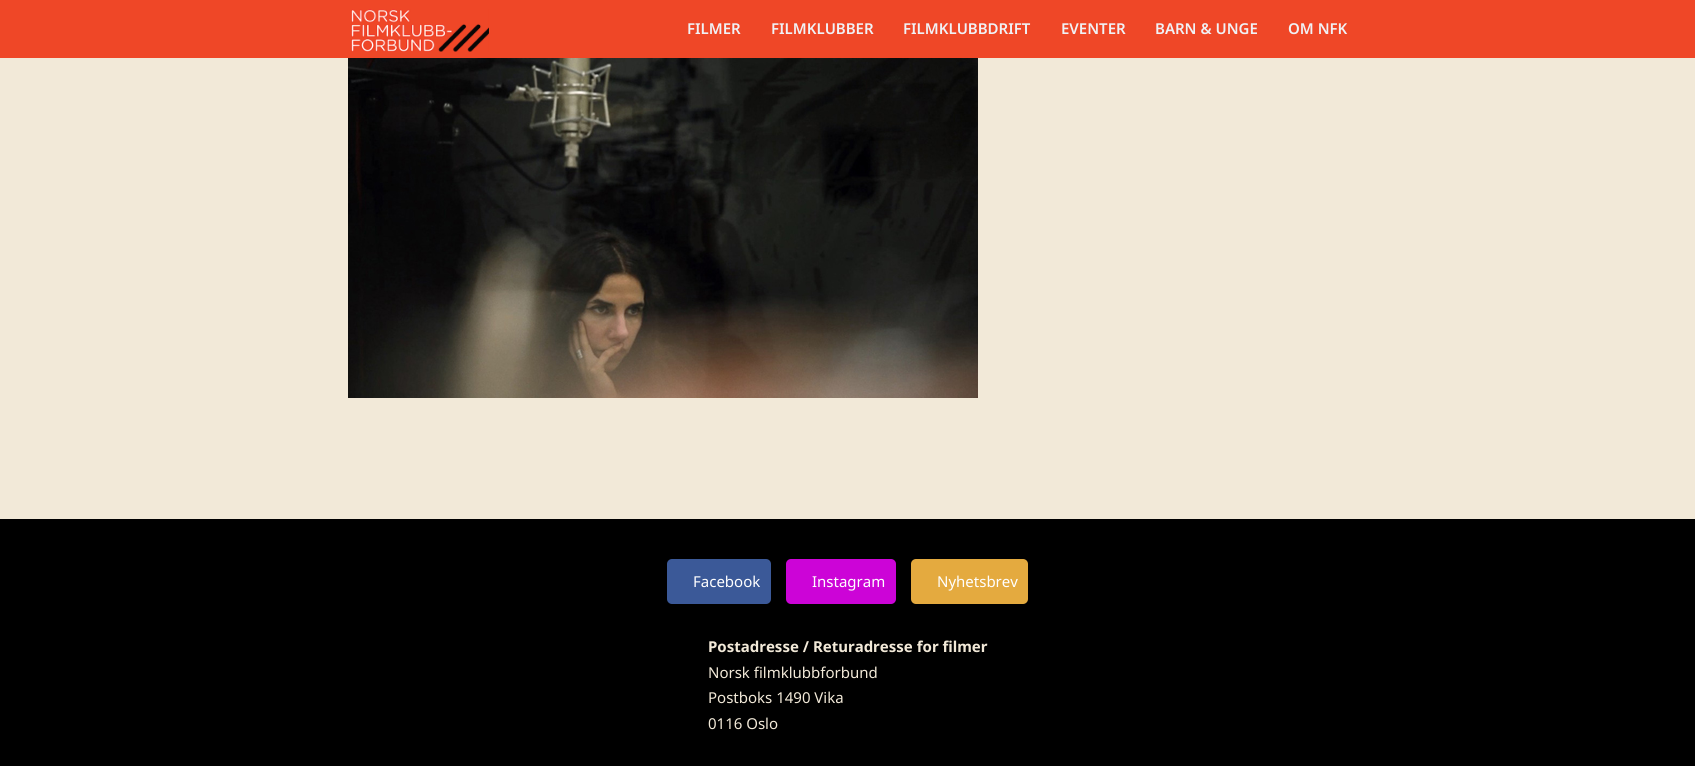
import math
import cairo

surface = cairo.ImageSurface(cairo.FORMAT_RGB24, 1695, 766)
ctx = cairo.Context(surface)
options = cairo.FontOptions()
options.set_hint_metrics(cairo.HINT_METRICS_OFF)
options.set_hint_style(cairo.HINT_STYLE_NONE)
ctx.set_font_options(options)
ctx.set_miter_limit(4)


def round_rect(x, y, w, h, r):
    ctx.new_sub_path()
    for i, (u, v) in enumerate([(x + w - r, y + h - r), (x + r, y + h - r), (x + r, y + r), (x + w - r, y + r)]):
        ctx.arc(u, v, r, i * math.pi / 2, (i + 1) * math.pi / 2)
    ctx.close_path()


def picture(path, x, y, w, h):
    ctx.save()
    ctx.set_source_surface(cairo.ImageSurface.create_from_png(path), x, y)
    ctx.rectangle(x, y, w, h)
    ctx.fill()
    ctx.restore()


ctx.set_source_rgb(0.949, 0.914, 0.847)
ctx.paint()
ctx.set_source_rgb(0.937, 0.278, 0.153)
ctx.rectangle(0, 0, 1695, 58)
ctx.fill()
picture("img1.png", 351, 9, 138, 43)
ctx.select_font_face("Noto Sans SemiBold")
ctx.set_font_size(15)
ctx.set_source_rgb(0.941, 0.949, 0.961)
ctx.move_to(687, 34)
ctx.show_text("FILMER")
ctx.move_to(771, 34)
ctx.show_text("FILMKLUBBER")
ctx.move_to(903, 34)
ctx.show_text("FILMKLUBBDRIFT")
ctx.move_to(1061, 34)
ctx.show_text("EVENTER")
ctx.move_to(1155, 34)
ctx.show_text("BARN & UNGE")
ctx.move_to(1288, 34)
ctx.show_text("OM NFK")
picture("img2.png", 348, 58, 630, 340)
ctx.set_source_rgb(0, 0, 0)
ctx.rectangle(0, 519, 1695, 247)
ctx.fill()
ctx.set_source_rgb(0.231, 0.349, 0.596)
round_rect(667, 559, 104, 45, 5)
ctx.fill()
ctx.select_font_face("Noto Sans")
ctx.set_source_rgb(1, 1, 1)
ctx.move_to(693, 587)
ctx.show_text("Facebook")
ctx.set_source_rgb(0.8, 0.016, 0.843)
round_rect(786, 559, 110, 45, 5)
ctx.fill()
ctx.set_source_rgb(1, 1, 1)
ctx.move_to(812, 587)
ctx.show_text("Instagram")
ctx.set_source_rgb(0.894, 0.667, 0.247)
round_rect(911, 559, 117, 45, 5)
ctx.fill()
ctx.set_source_rgb(1, 1, 1)
ctx.move_to(937, 587)
ctx.show_text("Nyhetsbrev")
ctx.select_font_face("Noto Sans", cairo.FONT_SLANT_NORMAL, cairo.FONT_WEIGHT_BOLD)
ctx.set_source_rgb(0.949, 0.914, 0.847)
ctx.move_to(708, 652)
ctx.show_text("Postadresse / Returadresse for filmer")
ctx.select_font_face("Noto Sans")
ctx.move_to(708, 678)
ctx.show_text("Norsk filmklubbforbund")
ctx.move_to(708, 703)
ctx.show_text("Postboks 1490 Vika")
ctx.move_to(708, 729)
ctx.show_text("0116 Oslo")
surface.write_to_png("page.png")
